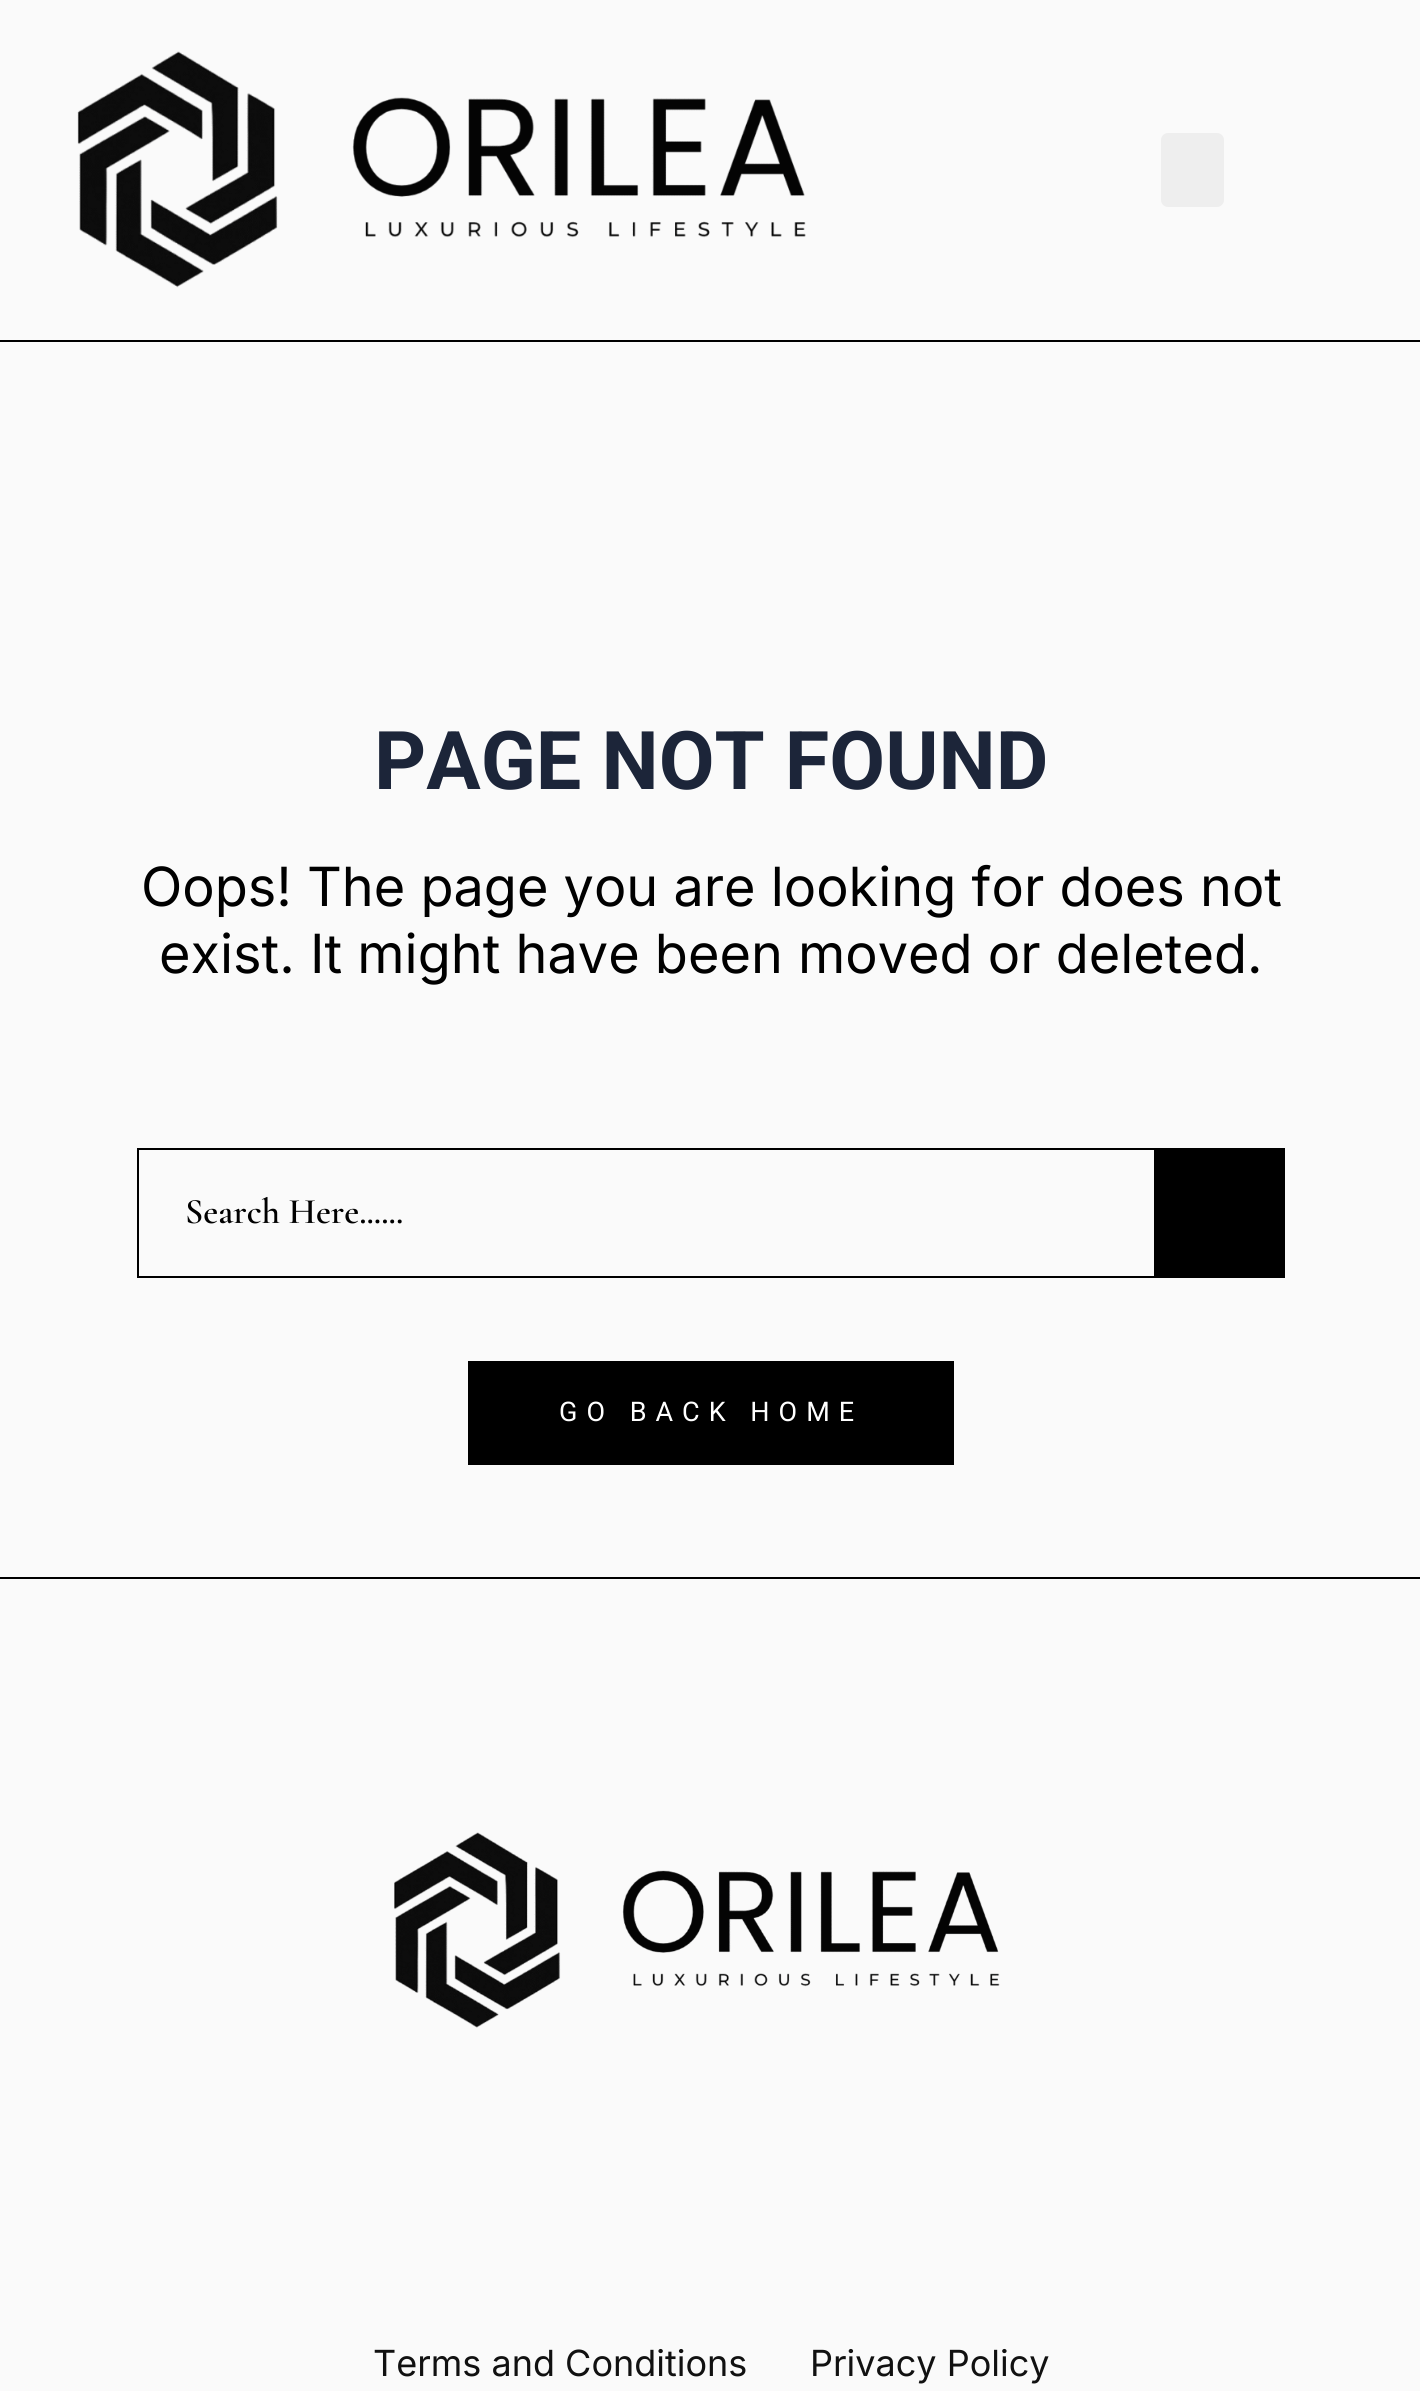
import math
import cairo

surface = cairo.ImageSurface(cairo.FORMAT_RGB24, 1420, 2391)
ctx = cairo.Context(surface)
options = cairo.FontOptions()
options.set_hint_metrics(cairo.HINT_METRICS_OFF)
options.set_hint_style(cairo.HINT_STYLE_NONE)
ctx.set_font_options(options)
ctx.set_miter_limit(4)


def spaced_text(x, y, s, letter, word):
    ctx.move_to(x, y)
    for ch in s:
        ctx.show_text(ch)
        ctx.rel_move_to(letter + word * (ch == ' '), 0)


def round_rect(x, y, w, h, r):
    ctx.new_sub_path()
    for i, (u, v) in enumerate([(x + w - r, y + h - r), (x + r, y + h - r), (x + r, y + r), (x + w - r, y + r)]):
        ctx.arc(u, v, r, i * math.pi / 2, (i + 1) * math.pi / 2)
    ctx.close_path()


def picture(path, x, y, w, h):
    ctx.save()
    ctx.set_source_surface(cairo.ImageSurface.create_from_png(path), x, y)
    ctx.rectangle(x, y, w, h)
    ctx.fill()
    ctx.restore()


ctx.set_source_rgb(0.98, 0.98, 0.98)
ctx.paint()
ctx.set_source_rgb(0, 0, 0)
ctx.rectangle(0, 340, 1420, 2)
ctx.fill()
picture("img1.png", 77, 51, 729, 237)
ctx.set_source_rgb(0.933, 0.933, 0.933)
round_rect(1161, 133, 63, 74, 7)
ctx.fill()
ctx.select_font_face("Roboto", cairo.FONT_SLANT_NORMAL, cairo.FONT_WEIGHT_BOLD)
ctx.set_font_size(81)
ctx.set_source_rgb(0.11, 0.145, 0.224)
ctx.move_to(374, 789)
ctx.show_text("PAGE NOT FOUND")
ctx.select_font_face("Inter")
ctx.set_font_size(54)
ctx.set_source_rgb(0, 0, 0)
ctx.move_to(141, 906)
ctx.show_text("Oops! The page you are looking for does not")
ctx.move_to(159, 973)
ctx.show_text("exist. It might have been moved or deleted.")
ctx.rectangle(138, 1149, 1146, 128)
ctx.stroke()
ctx.select_font_face("Cormorant Garamond SemiBold")
ctx.set_font_size(36)
ctx.move_to(185, 1223)
ctx.show_text("Search Here......")
ctx.rectangle(1154, 1150, 129, 126)
ctx.fill()
ctx.rectangle(468, 1361, 486, 104)
ctx.fill()
ctx.select_font_face("Roboto")
ctx.set_font_size(27)
ctx.set_source_rgb(1, 1, 1)
spaced_text(559, 1421, "GO BACK HOME", 9, 0)
ctx.set_source_rgb(0, 0, 0)
ctx.rectangle(0, 1577, 1420, 2)
ctx.fill()
picture("img2.png", 394, 1832, 606, 196)
ctx.select_font_face("Inter")
ctx.set_font_size(36)
ctx.set_source_rgb(0.067, 0.067, 0.067)
ctx.move_to(373, 2376)
ctx.show_text("Terms and Conditions")
ctx.move_to(810, 2376)
ctx.show_text("Privacy Policy")
surface.write_to_png("page.png")
